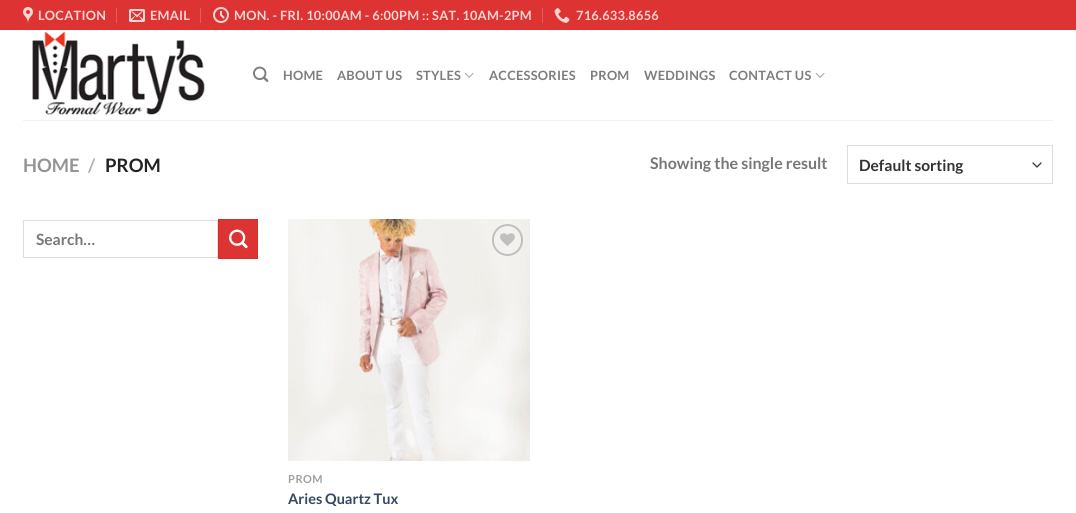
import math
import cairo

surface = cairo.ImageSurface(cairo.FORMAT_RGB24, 1076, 513)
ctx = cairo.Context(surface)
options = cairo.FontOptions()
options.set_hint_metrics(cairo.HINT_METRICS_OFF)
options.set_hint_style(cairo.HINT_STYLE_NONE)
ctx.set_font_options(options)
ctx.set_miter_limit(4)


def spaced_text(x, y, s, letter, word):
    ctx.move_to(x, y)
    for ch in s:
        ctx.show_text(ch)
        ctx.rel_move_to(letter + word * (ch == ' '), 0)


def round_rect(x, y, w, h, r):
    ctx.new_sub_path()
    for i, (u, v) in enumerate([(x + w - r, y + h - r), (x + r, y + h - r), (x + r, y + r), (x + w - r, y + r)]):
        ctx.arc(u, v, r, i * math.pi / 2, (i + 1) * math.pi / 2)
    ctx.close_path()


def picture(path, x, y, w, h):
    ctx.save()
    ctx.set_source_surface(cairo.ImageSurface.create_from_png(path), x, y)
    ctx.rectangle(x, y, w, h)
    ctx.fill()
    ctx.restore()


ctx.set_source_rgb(1, 1, 1)
ctx.paint()
ctx.set_source_rgb(0.867, 0.2, 0.2)
ctx.rectangle(0, 0, 1076, 30)
ctx.fill()
picture("img1.png", 23, 7, 10, 16)
ctx.select_font_face("Lato", cairo.FONT_SLANT_NORMAL, cairo.FONT_WEIGHT_BOLD)
ctx.set_font_size(12.8)
ctx.set_source_rgb(0.973, 0.839, 0.839)
spaced_text(38, 20, "LOCATION", 0.25, 0)
ctx.set_source_rgb(0.894, 0.361, 0.361)
ctx.rectangle(116, 8, 1, 15)
ctx.fill()
picture("img2.png", 129, 9, 16, 13)
ctx.set_source_rgb(0.973, 0.839, 0.839)
spaced_text(150, 20, "EMAIL", 0.25, 0)
ctx.set_source_rgb(0.894, 0.361, 0.361)
ctx.rectangle(200, 8, 1, 15)
ctx.fill()
picture("img3.png", 213, 7, 16, 16)
ctx.set_source_rgb(0.973, 0.839, 0.839)
spaced_text(234, 20, "MON. - FRI. 10:00AM - 6:00PM :: SAT. 10AM-2PM", 0.25, 0)
ctx.set_source_rgb(0.894, 0.361, 0.361)
ctx.rectangle(542, 8, 1, 15)
ctx.fill()
picture("img4.png", 554, 8, 16, 15)
ctx.set_source_rgb(0.973, 0.839, 0.839)
spaced_text(576, 20, "716.633.8656", 0.25, 0)
picture("img5.png", 32, 31, 173, 84)
picture("img6.png", 253, 66, 16, 16)
ctx.set_source_rgb(0.49, 0.49, 0.49)
spaced_text(283, 80, "HOME", 0.25, 0)
spaced_text(337, 80, "ABOUT US", 0.25, 0)
spaced_text(416, 80, "STYLES", 0.25, 0)
picture("img7.png", 464, 72, 10, 6)
spaced_text(489, 80, "ACCESSORIES", 0.25, 0)
spaced_text(590, 80, "PROM", 0.25, 0)
spaced_text(644, 80, "WEDDINGS", 0.25, 0)
spaced_text(729, 80, "CONTACT US", 0.25, 0)
picture("img7.png", 815, 72, 10, 6)
ctx.set_source_rgb(0.945, 0.945, 0.945)
ctx.rectangle(23, 120, 1030, 1)
ctx.fill()
ctx.set_font_size(18.5)
ctx.set_source_rgb(0.58, 0.58, 0.58)
ctx.move_to(23, 172)
ctx.show_text("HOME")
ctx.set_source_rgb(0.698, 0.698, 0.698)
ctx.move_to(88, 172)
ctx.show_text("/")
ctx.set_source_rgb(0.133, 0.133, 0.133)
ctx.move_to(105, 172)
ctx.show_text("PROM")
ctx.set_font_size(16)
ctx.set_source_rgb(0.467, 0.467, 0.467)
ctx.move_to(650, 169)
ctx.show_text("Showing the single result")
ctx.new_path()
ctx.move_to(1033, 163)
ctx.line_to(1037, 167)
ctx.line_to(1041, 163)
ctx.set_source_rgb(0.2, 0.2, 0.2)
ctx.set_line_width(1.3)
ctx.set_line_cap(cairo.LINE_CAP_ROUND)
ctx.set_line_join(cairo.LINE_JOIN_ROUND)
ctx.stroke()
ctx.rectangle(847.5, 145.5, 205, 38)
ctx.set_source_rgb(0.867, 0.867, 0.867)
ctx.set_line_width(1)
ctx.set_line_cap(cairo.LINE_CAP_BUTT)
ctx.set_line_join(cairo.LINE_JOIN_MITER)
ctx.stroke()
ctx.set_font_size(15.5)
ctx.set_source_rgb(0.2, 0.2, 0.2)
ctx.move_to(859, 171)
ctx.show_text("Default sorting")
ctx.rectangle(23.5, 220.5, 194, 37)
ctx.set_source_rgb(0.867, 0.867, 0.867)
ctx.stroke()
ctx.set_source_rgb(0.467, 0.467, 0.467)
ctx.move_to(36, 245)
ctx.show_text("Search…")
ctx.set_source_rgb(0.867, 0.2, 0.2)
ctx.rectangle(218.5, 219.5, 39, 39)
ctx.fill_preserve()
ctx.set_source_rgb(0.824, 0.188, 0.188)
ctx.stroke()
picture("img8.png", 229, 229, 19, 20)
picture("img9.png", 288, 219, 242, 242)
round_rect(493, 225, 29, 30, 14.5)
ctx.set_source_rgb(0.753, 0.753, 0.753)
ctx.set_line_width(2)
ctx.stroke()
picture("img10.png", 500, 233, 15, 13)
ctx.set_font_size(11)
ctx.set_source_rgb(0.627, 0.627, 0.627)
spaced_text(288, 483, "PROM", 0.5, 0)
ctx.set_font_size(14.5)
ctx.set_source_rgb(0.2, 0.282, 0.384)
ctx.move_to(288, 504)
ctx.show_text("Aries Quartz Tux")
surface.write_to_png("page.png")
